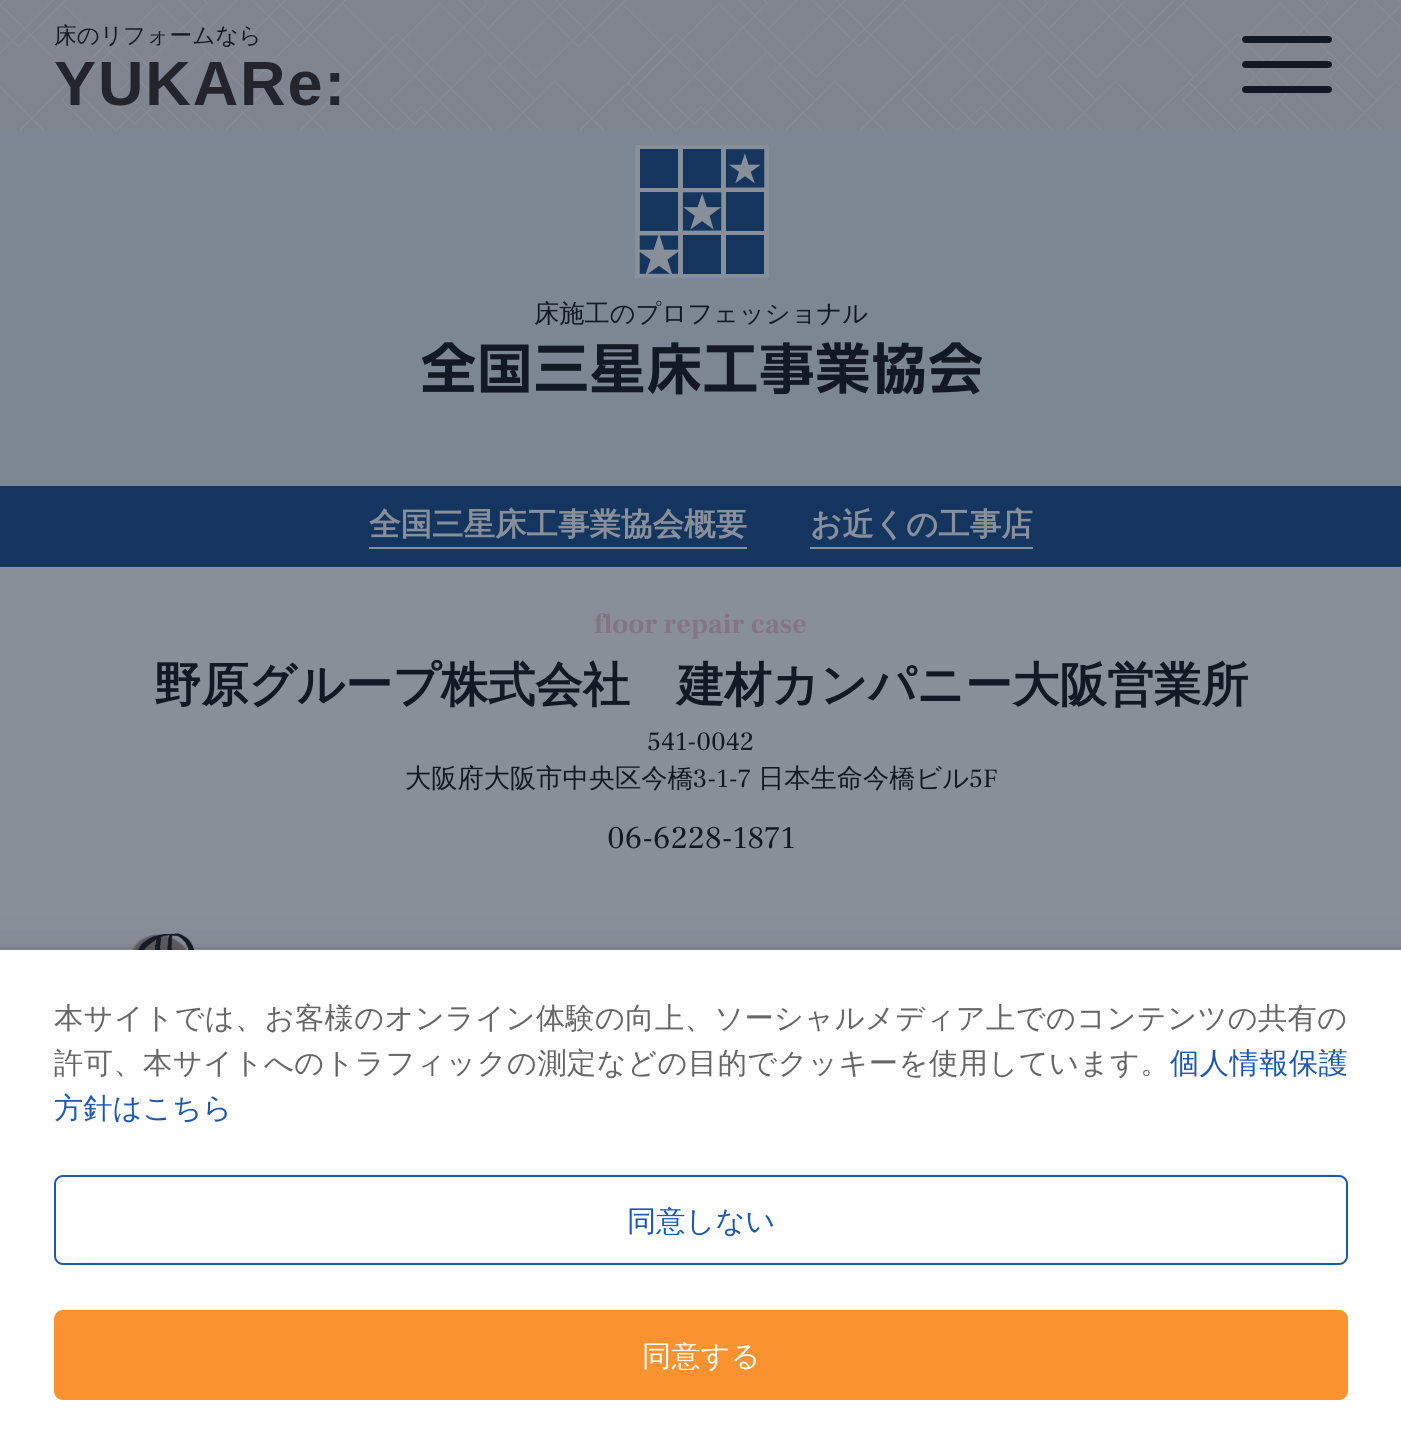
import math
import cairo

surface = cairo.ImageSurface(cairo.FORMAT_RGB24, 1401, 1443)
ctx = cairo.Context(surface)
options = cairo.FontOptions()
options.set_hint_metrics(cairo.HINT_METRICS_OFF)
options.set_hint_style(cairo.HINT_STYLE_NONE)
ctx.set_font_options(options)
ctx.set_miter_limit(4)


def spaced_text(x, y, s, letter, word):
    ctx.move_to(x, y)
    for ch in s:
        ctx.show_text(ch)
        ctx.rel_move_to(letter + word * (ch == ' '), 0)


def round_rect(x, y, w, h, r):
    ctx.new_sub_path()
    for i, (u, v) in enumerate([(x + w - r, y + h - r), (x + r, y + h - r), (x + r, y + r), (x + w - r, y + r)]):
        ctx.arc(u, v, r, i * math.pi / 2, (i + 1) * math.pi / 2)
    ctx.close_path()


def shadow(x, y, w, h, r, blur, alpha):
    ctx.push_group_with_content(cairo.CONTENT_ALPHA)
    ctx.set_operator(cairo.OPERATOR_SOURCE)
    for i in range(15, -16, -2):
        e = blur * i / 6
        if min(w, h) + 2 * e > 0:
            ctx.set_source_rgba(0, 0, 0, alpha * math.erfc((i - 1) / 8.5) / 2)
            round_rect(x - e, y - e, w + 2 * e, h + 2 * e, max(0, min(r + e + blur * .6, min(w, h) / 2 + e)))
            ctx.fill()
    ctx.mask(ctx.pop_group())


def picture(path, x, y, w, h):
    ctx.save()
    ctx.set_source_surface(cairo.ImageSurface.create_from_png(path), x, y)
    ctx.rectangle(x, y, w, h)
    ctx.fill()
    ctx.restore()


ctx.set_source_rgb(0.537, 0.561, 0.6)
ctx.paint()
ctx.set_source_rgb(0.506, 0.522, 0.561)
ctx.rectangle(0, 0, 1401, 81)
ctx.fill()
ctx.set_source_rgb(0.502, 0.518, 0.557)
ctx.rectangle(0, 81, 1401, 50)
ctx.fill()
picture("img1.png", 0, 0, 1401, 131)
picture("img2.png", 54, 24, 286, 82)
ctx.set_source_rgb(0.075, 0.098, 0.141)
round_rect(1242, 36, 90, 7, 3.5)
ctx.fill()
round_rect(1242, 61, 90, 7, 3.5)
ctx.fill()
round_rect(1242, 86, 90, 7, 3.5)
ctx.fill()
ctx.set_source_rgb(0.49, 0.525, 0.576)
ctx.rectangle(0, 131, 1401, 355)
ctx.fill()
picture("img3.png", 635, 145, 134, 133)
ctx.select_font_face("WenQuanYi Zen Hei Medium")
ctx.set_font_size(25.25)
ctx.set_source_rgb(0.075, 0.098, 0.141)
ctx.move_to(534, 322)
ctx.show_text("床施工のプロフェッショナル")
picture("img4.png", 421, 342, 562, 53)
ctx.set_source_rgb(0.075, 0.208, 0.376)
ctx.rectangle(0, 486, 1401, 81)
ctx.fill()
ctx.select_font_face("WenQuanYi Zen Hei", cairo.FONT_SLANT_NORMAL, cairo.FONT_WEIGHT_BOLD)
ctx.set_font_size(31.5)
ctx.set_source_rgb(0.537, 0.561, 0.6)
ctx.move_to(369, 535)
ctx.show_text("全国三星床工事業協会概要")
ctx.rectangle(369, 547, 378, 2)
ctx.fill()
ctx.move_to(810, 535)
ctx.show_text("お近くの工事店")
ctx.rectangle(810, 547, 223, 2)
ctx.fill()
ctx.select_font_face("Frank Ruhl Libre", cairo.FONT_SLANT_NORMAL, cairo.FONT_WEIGHT_BOLD)
ctx.set_font_size(28.25)
ctx.set_source_rgb(0.518, 0.459, 0.51)
ctx.move_to(594, 633)
ctx.show_text("floor repair case")
ctx.select_font_face("WenQuanYi Zen Hei", cairo.FONT_SLANT_NORMAL, cairo.FONT_WEIGHT_BOLD)
ctx.set_font_size(47.25)
ctx.set_source_rgb(0.075, 0.098, 0.141)
ctx.move_to(154, 701)
ctx.show_text("野原グループ株式会社")
ctx.move_to(677, 701)
ctx.show_text("建材カンパニー大阪営業所")
ctx.select_font_face("Frank Ruhl Libre")
ctx.set_font_size(26.25)
ctx.move_to(647, 750)
ctx.show_text("541-0042")
ctx.select_font_face("WenQuanYi Zen Hei Medium")
ctx.move_to(405, 787)
ctx.show_text("大阪府大阪市中央区今橋")
ctx.select_font_face("Frank Ruhl Libre")
ctx.move_to(693, 787)
ctx.show_text("3-1-7")
ctx.select_font_face("WenQuanYi Zen Hei Medium")
ctx.move_to(758, 787)
ctx.show_text("日本生命今橋ビル")
ctx.select_font_face("Frank Ruhl Libre")
ctx.move_to(969, 787)
ctx.show_text("5F")
ctx.set_font_size(31.5)
ctx.move_to(607, 848)
ctx.show_text("06-6228-1871")
picture("img5.png", 132, 933, 63, 17)
ctx.set_source_rgb(0.141, 0.184, 0.259)
shadow(-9, 963, 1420, 468, 0, 22.5, 0.31)
ctx.rectangle(-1, 948, 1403, 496)
ctx.set_source_rgba(0.141, 0.184, 0.259, 0.08)
ctx.stroke()
ctx.set_source_rgb(1, 1, 1)
ctx.rectangle(0, 950, 1401, 493)
ctx.fill()
ctx.select_font_face("WenQuanYi Zen Hei Medium")
ctx.set_font_size(29.25)
ctx.set_source_rgb(0.4, 0.4, 0.4)
spaced_text(54, 1028, "本サイトでは、お客様のオンライン体験の向上、ソーシャルメディア上でのコンテンツの共有の", 0.35, 0)
spaced_text(54, 1073, "許可、本サイトへのトラフィックの測定などの目的でクッキーを使用しています。", 0.45, 0)
ctx.set_source_rgb(0.118, 0.345, 0.694)
spaced_text(1170, 1073, "個人情報保護", 0.5, 0)
ctx.move_to(54, 1118)
ctx.show_text("方針はこちら")
round_rect(55, 1176, 1292, 88, 8)
ctx.stroke()
ctx.move_to(627, 1231)
ctx.show_text("同意しない")
ctx.set_source_rgb(0.973, 0.573, 0.184)
round_rect(55, 1311, 1292, 88, 8)
ctx.fill_preserve()
ctx.stroke()
ctx.set_source_rgb(1, 1, 1)
ctx.move_to(642, 1366)
ctx.show_text("同意する")
surface.write_to_png("page.png")
